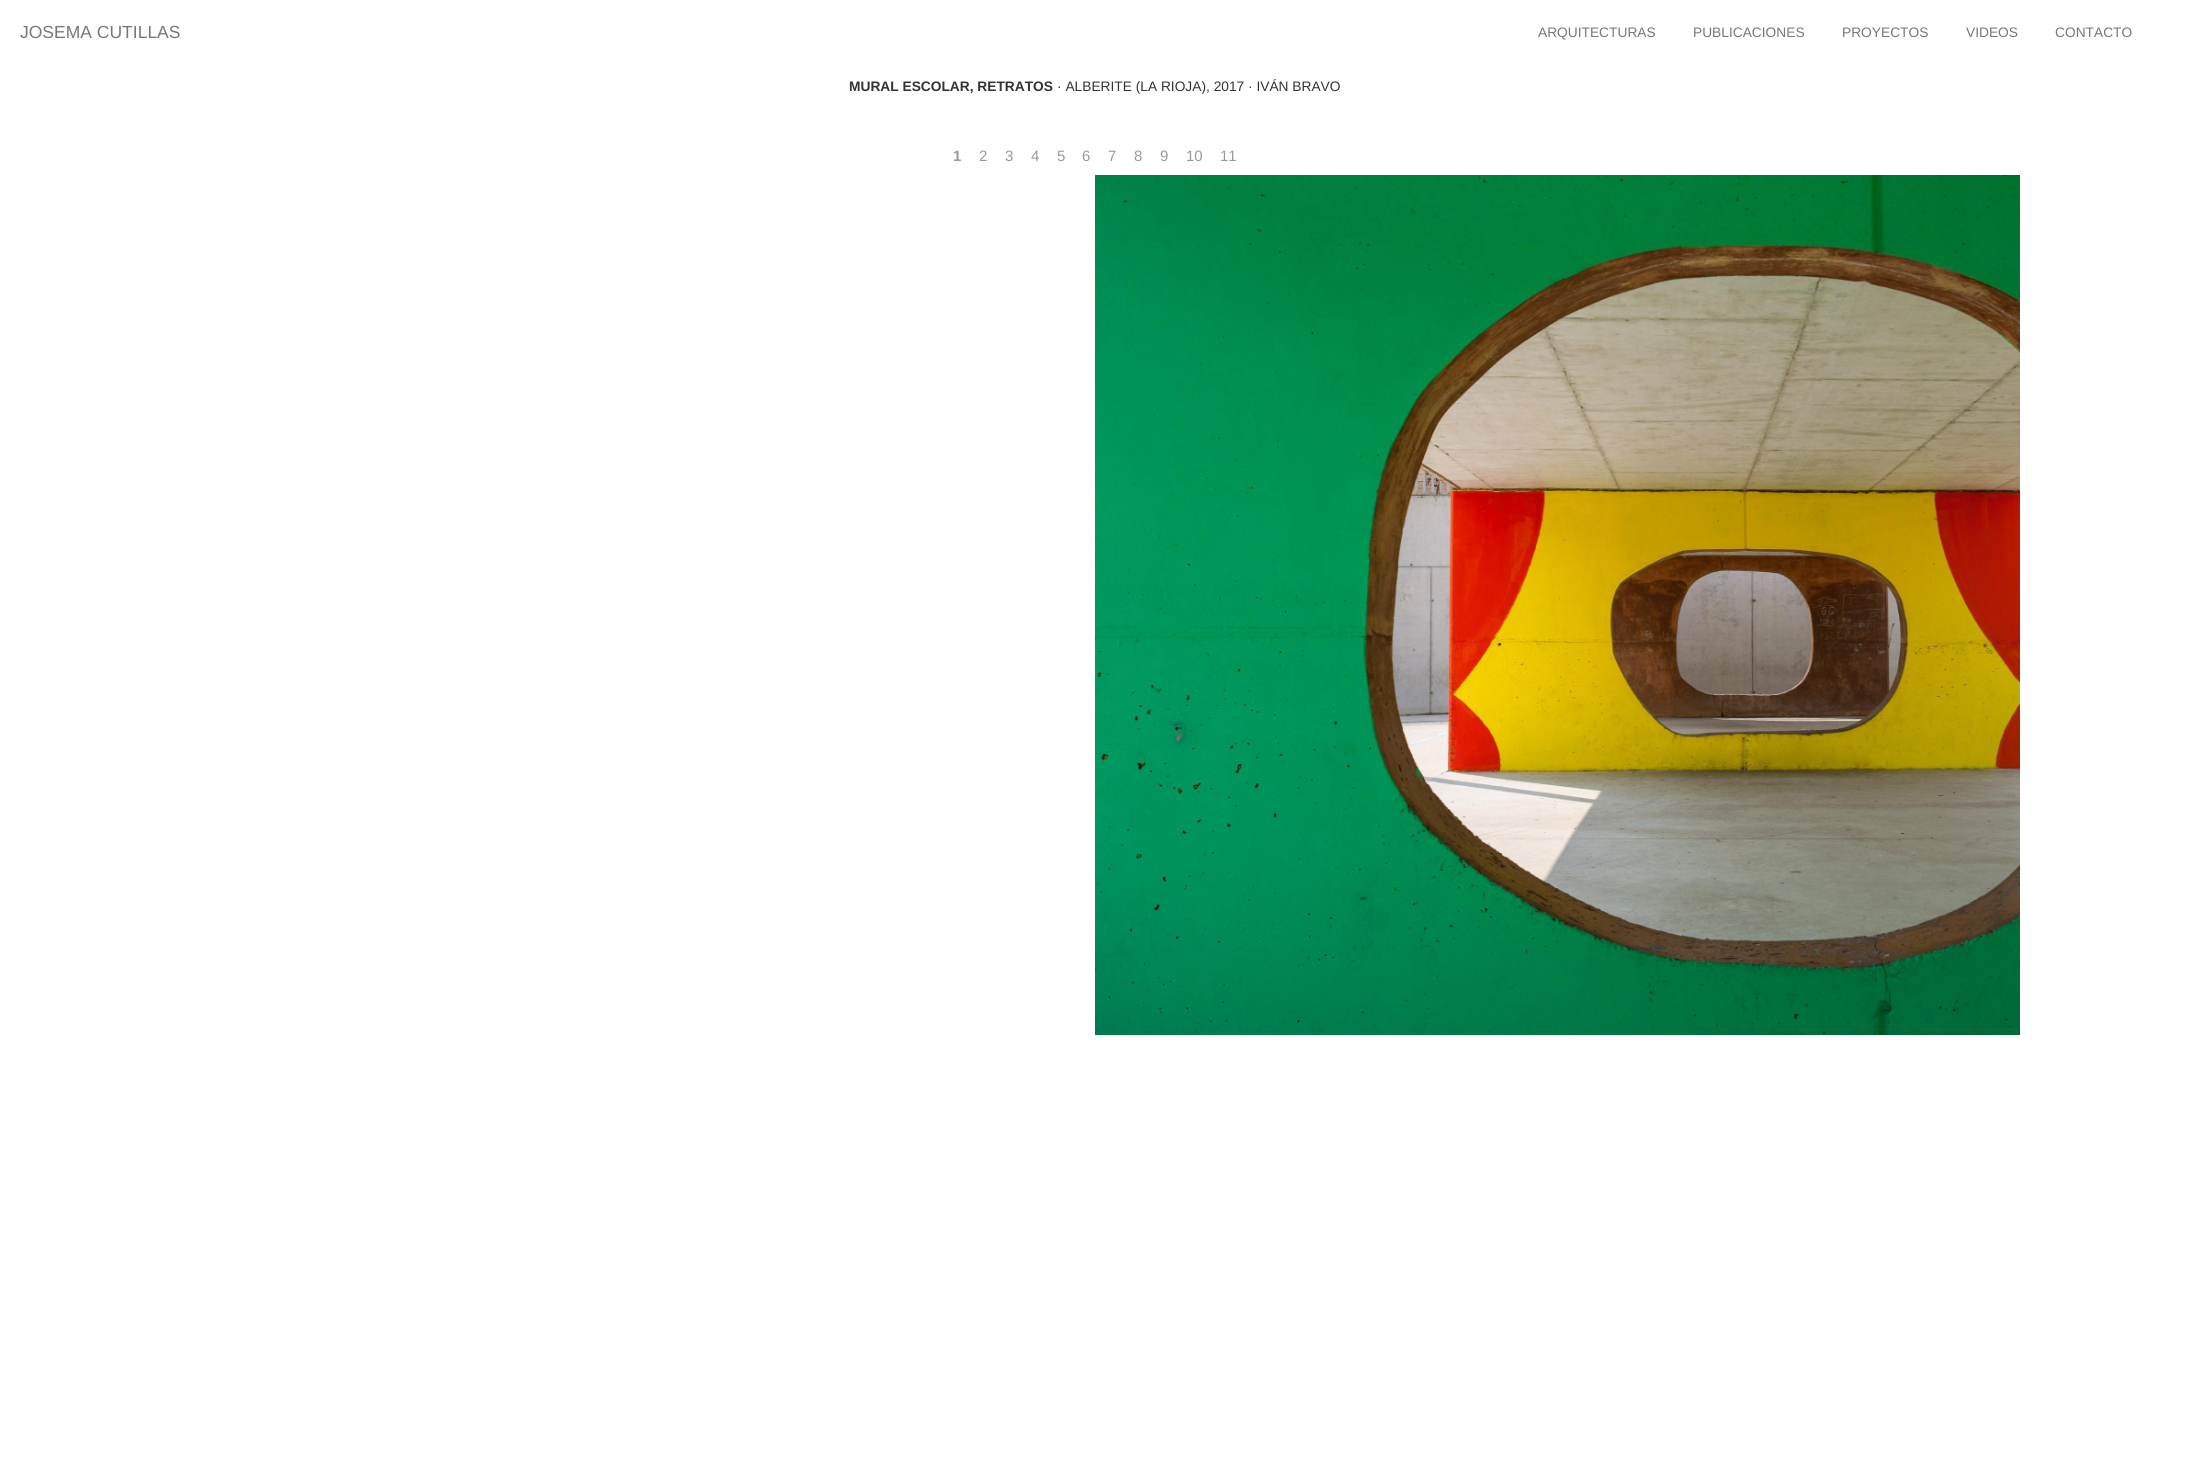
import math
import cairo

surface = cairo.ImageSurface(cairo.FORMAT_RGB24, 2190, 1465)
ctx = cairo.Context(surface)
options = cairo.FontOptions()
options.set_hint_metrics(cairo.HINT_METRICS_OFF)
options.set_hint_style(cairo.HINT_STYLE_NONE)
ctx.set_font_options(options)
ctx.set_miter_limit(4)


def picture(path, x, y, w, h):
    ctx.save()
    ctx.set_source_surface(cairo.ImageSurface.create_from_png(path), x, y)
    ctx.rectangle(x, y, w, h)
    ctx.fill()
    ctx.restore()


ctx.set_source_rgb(1, 1, 1)
ctx.paint()
ctx.select_font_face("Liberation Sans")
ctx.set_font_size(17.5)
ctx.set_source_rgb(0.467, 0.467, 0.467)
ctx.move_to(20, 38)
ctx.show_text("JOSEMA CUTILLAS")
ctx.set_font_size(13.75)
ctx.move_to(1538, 37)
ctx.show_text("ARQUITECTURAS")
ctx.move_to(1693, 37)
ctx.show_text("PUBLICACIONES")
ctx.move_to(1842, 37)
ctx.show_text("PROYECTOS")
ctx.move_to(1966, 37)
ctx.show_text("VIDEOS")
ctx.move_to(2055, 37)
ctx.show_text("CONTACTO")
ctx.select_font_face("Liberation Sans", cairo.FONT_SLANT_NORMAL, cairo.FONT_WEIGHT_BOLD)
ctx.set_source_rgb(0.2, 0.2, 0.2)
ctx.move_to(849, 91)
ctx.show_text("MURAL ESCOLAR, RETRATOS")
ctx.select_font_face("Liberation Sans")
ctx.move_to(1057, 91)
ctx.show_text("· ALBERITE (LA RIOJA), 2017 · IVÁN BRAVO")
ctx.select_font_face("Liberation Sans", cairo.FONT_SLANT_NORMAL, cairo.FONT_WEIGHT_BOLD)
ctx.set_font_size(15)
ctx.set_source_rgb(0.6, 0.6, 0.6)
ctx.move_to(953, 161)
ctx.show_text("1")
ctx.select_font_face("Liberation Sans")
ctx.move_to(979, 161)
ctx.show_text("2")
ctx.move_to(1005, 161)
ctx.show_text("3")
ctx.move_to(1031, 161)
ctx.show_text("4")
ctx.move_to(1057, 161)
ctx.show_text("5")
ctx.move_to(1082, 161)
ctx.show_text("6")
ctx.move_to(1108, 161)
ctx.show_text("7")
ctx.move_to(1134, 161)
ctx.show_text("8")
ctx.move_to(1160, 161)
ctx.show_text("9")
ctx.move_to(1186, 161)
ctx.show_text("10")
ctx.move_to(1220, 161)
ctx.show_text("11")
picture("img1.png", 1095, 175, 925, 860)
surface.write_to_png("page.png")
